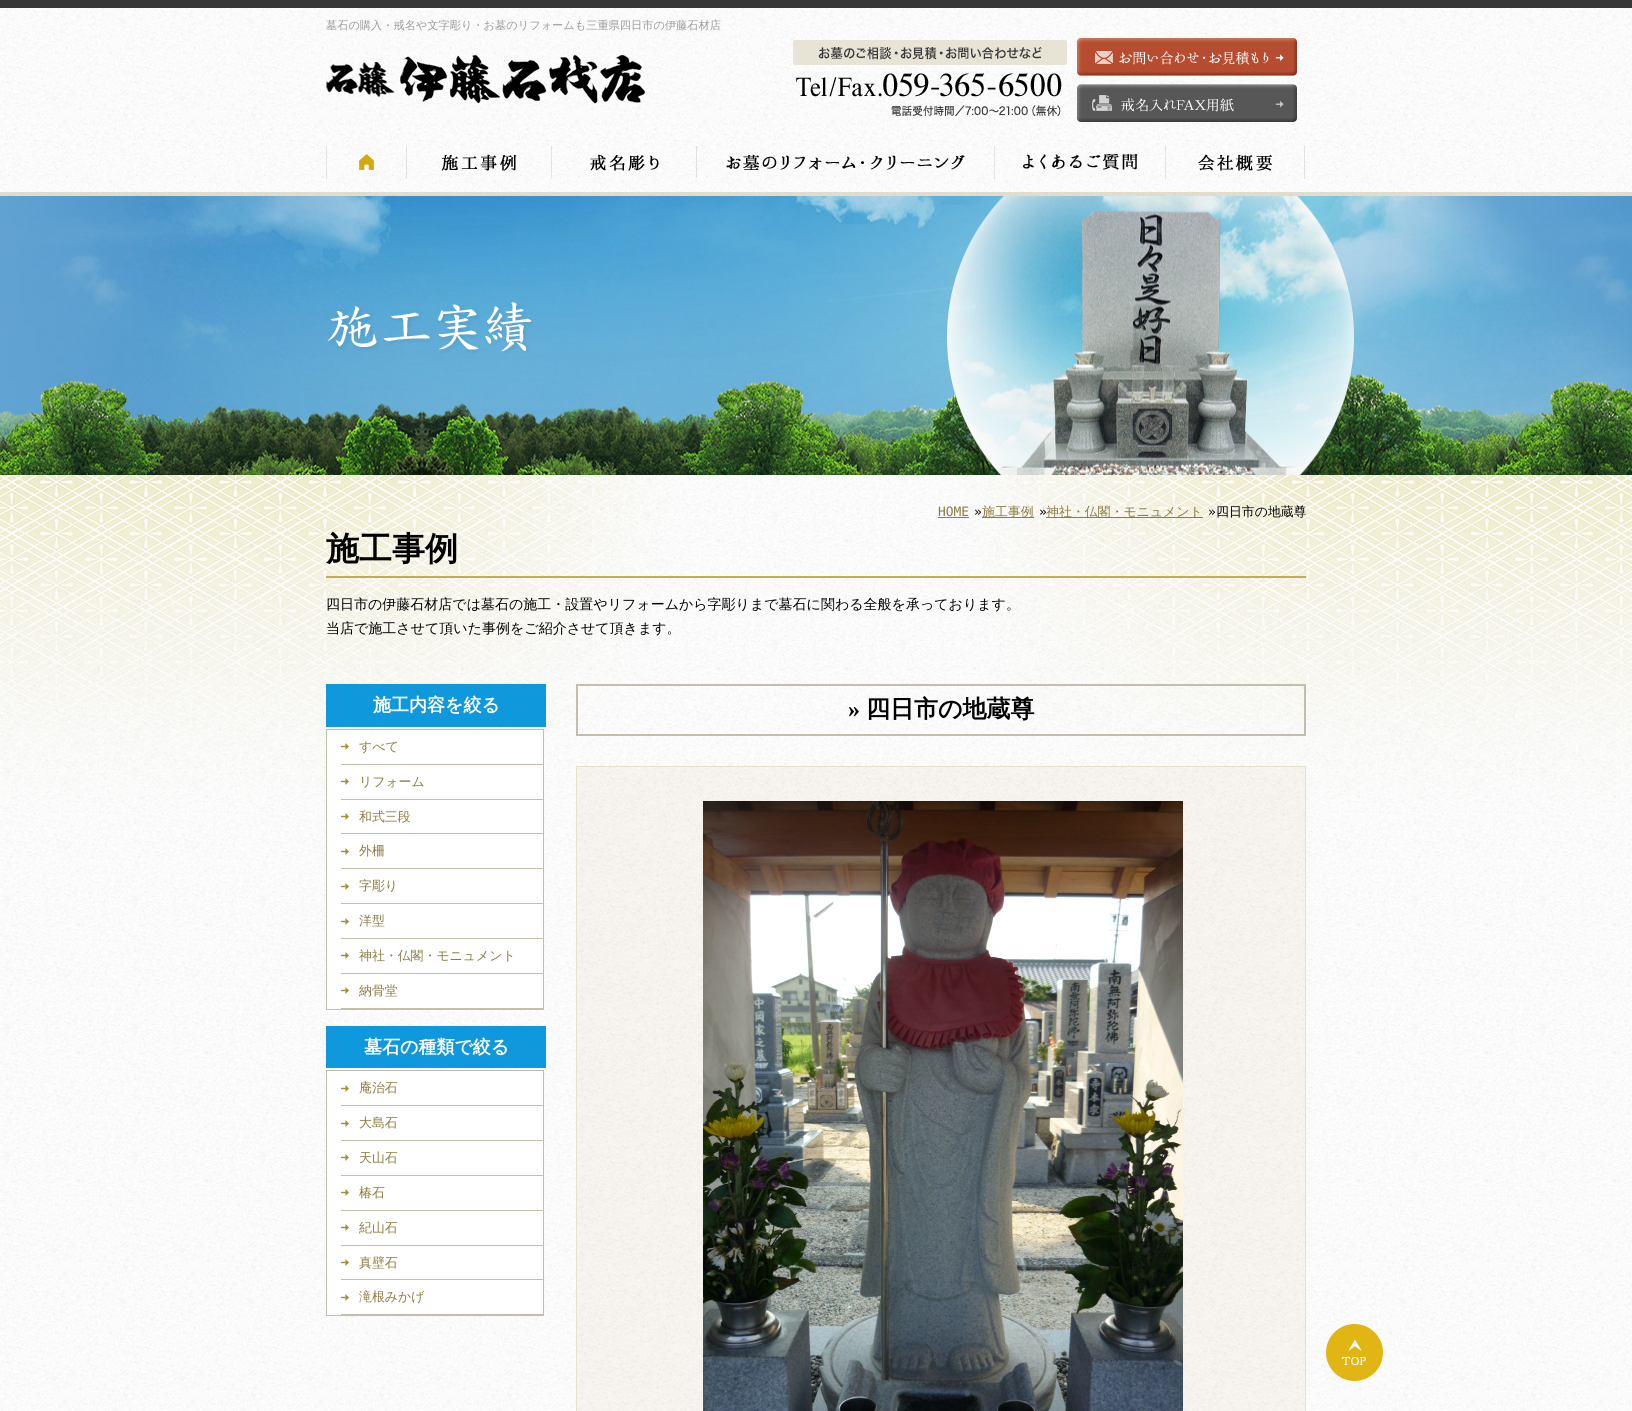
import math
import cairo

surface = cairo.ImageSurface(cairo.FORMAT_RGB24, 1632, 1411)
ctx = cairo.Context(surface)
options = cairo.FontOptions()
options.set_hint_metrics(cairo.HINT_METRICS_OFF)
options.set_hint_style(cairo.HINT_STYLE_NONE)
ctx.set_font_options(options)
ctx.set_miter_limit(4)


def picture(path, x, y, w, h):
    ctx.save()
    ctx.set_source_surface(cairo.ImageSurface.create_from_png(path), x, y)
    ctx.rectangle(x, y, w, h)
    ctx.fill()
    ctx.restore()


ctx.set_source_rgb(1, 1, 1)
ctx.paint()
picture("img1.png", 0, 8, 1632, 1403)
ctx.set_source_rgb(0.216, 0.216, 0.216)
ctx.rectangle(0, 0, 1632, 8)
ctx.fill()
ctx.select_font_face("WenQuanYi Zen Hei Medium")
ctx.set_font_size(11.2)
ctx.set_source_rgb(0.608, 0.608, 0.608)
ctx.move_to(326, 29)
ctx.show_text("墓石の購入・戒名や文字彫り・お墓のリフォームも三重県四日市の伊藤石材店")
picture("img2.png", 326, 55, 319, 49)
picture("img3.png", 793, 40, 274, 25)
picture("img4.png", 796, 73, 266, 43)
picture("img5.png", 1077, 38, 220, 38)
picture("img6.png", 1077, 84, 220, 38)
picture("img7.png", 0, 129, 1632, 67)
ctx.set_source_rgba(0, 0, 0, 0.1)
ctx.rectangle(326, 146, 1, 33)
ctx.fill()
picture("img8.png", 359, 154, 15, 16)
ctx.rectangle(406, 146, 1, 33)
ctx.fill()
picture("img9.png", 441, 154, 76, 17)
ctx.rectangle(551, 146, 1, 32)
ctx.fill()
picture("img10.png", 590, 154, 69, 17)
ctx.rectangle(696, 146, 1, 32)
ctx.fill()
picture("img11.png", 726, 154, 239, 16)
ctx.rectangle(994, 146, 1, 33)
ctx.fill()
picture("img12.png", 1023, 154, 115, 16)
ctx.rectangle(1304, 146, 1, 33)
ctx.fill()
ctx.rectangle(1165, 146, 1, 33)
ctx.fill()
picture("img13.png", 1198, 154, 74, 17)
picture("img14.png", 0, 196, 1632, 279)
picture("img15.png", 328, 302, 205, 51)
picture("img16.png", 0, 475, 1632, 725)
ctx.select_font_face("DejaVu Sans Mono")
ctx.set_font_size(12.9)
ctx.set_source_rgb(0.541, 0.482, 0.259)
ctx.move_to(938, 516)
ctx.show_text("HOME")
ctx.rectangle(938, 517, 31, 1)
ctx.fill()
ctx.set_source_rgb(0, 0, 0)
ctx.move_to(974, 516)
ctx.show_text("»")
ctx.set_source_rgb(0.541, 0.482, 0.259)
ctx.rectangle(982, 517, 52, 1)
ctx.fill()
ctx.select_font_face("WenQuanYi Zen Hei Medium")
ctx.move_to(982, 516)
ctx.show_text("施工事例")
ctx.select_font_face("DejaVu Sans Mono")
ctx.set_source_rgb(0, 0, 0)
ctx.move_to(1039, 516)
ctx.show_text("»")
ctx.set_source_rgb(0.541, 0.482, 0.259)
ctx.rectangle(1046, 517, 157, 1)
ctx.fill()
ctx.select_font_face("WenQuanYi Zen Hei Medium")
ctx.move_to(1046, 516)
ctx.show_text("神社・仏閣・モニュメント")
ctx.select_font_face("DejaVu Sans Mono")
ctx.set_source_rgb(0, 0, 0)
ctx.move_to(1208, 516)
ctx.show_text("»")
ctx.select_font_face("WenQuanYi Zen Hei Medium")
ctx.move_to(1216, 516)
ctx.show_text("四日市の地蔵尊")
ctx.set_source_rgb(0.761, 0.675, 0.341)
ctx.rectangle(326, 576, 980, 2)
ctx.fill()
ctx.select_font_face("WenQuanYi Zen Hei", cairo.FONT_SLANT_NORMAL, cairo.FONT_WEIGHT_BOLD)
ctx.set_font_size(33)
ctx.set_source_rgb(0, 0, 0)
ctx.move_to(326, 560)
ctx.show_text("施工事例")
ctx.select_font_face("WenQuanYi Zen Hei Medium")
ctx.set_font_size(14)
ctx.move_to(326, 609)
ctx.show_text("四日市の伊藤石材店では墓石の施工・設置やリフォームから字彫りまで墓石に関わる全般を承っております。")
ctx.move_to(326, 633)
ctx.show_text("当店で施工させて頂いた事例をご紹介させて頂きます。")
ctx.set_source_rgb(0.063, 0.596, 0.867)
ctx.rectangle(326, 684, 220, 43)
ctx.fill()
ctx.select_font_face("WenQuanYi Zen Hei", cairo.FONT_SLANT_NORMAL, cairo.FONT_WEIGHT_BOLD)
ctx.set_font_size(18)
ctx.set_source_rgb(1, 1, 1)
ctx.move_to(373, 711)
ctx.show_text("施工内容を絞る")
ctx.rectangle(326.5, 729.5, 217, 280)
ctx.fill_preserve()
ctx.set_source_rgb(0.765, 0.741, 0.671)
ctx.set_line_width(1)
ctx.stroke()
picture("img17.png", 341, 743, 8, 7)
ctx.rectangle(341, 764, 202, 1)
ctx.fill()
ctx.select_font_face("WenQuanYi Zen Hei Medium")
ctx.set_font_size(12.9)
ctx.set_source_rgb(0.541, 0.482, 0.259)
ctx.move_to(359, 751)
ctx.show_text("すべて")
picture("img17.png", 341, 778, 8, 7)
ctx.set_source_rgb(0.765, 0.741, 0.671)
ctx.rectangle(341, 799, 202, 1)
ctx.fill()
ctx.set_source_rgb(0.541, 0.482, 0.259)
ctx.move_to(359, 786)
ctx.show_text("リフォーム")
picture("img17.png", 341, 813, 8, 7)
ctx.set_source_rgb(0.765, 0.741, 0.671)
ctx.rectangle(341, 833, 202, 1)
ctx.fill()
ctx.set_source_rgb(0.541, 0.482, 0.259)
ctx.move_to(359, 821)
ctx.show_text("和式三段")
picture("img17.png", 341, 848, 8, 7)
ctx.set_source_rgb(0.765, 0.741, 0.671)
ctx.rectangle(341, 868, 202, 1)
ctx.fill()
ctx.set_source_rgb(0.541, 0.482, 0.259)
ctx.move_to(359, 855)
ctx.show_text("外柵")
picture("img17.png", 341, 883, 8, 7)
ctx.set_source_rgb(0.765, 0.741, 0.671)
ctx.rectangle(341, 903, 202, 1)
ctx.fill()
ctx.set_source_rgb(0.541, 0.482, 0.259)
ctx.move_to(359, 890)
ctx.show_text("字彫り")
picture("img17.png", 341, 918, 8, 7)
ctx.set_source_rgb(0.765, 0.741, 0.671)
ctx.rectangle(341, 938, 202, 1)
ctx.fill()
ctx.set_source_rgb(0.541, 0.482, 0.259)
ctx.move_to(359, 925)
ctx.show_text("洋型")
picture("img17.png", 341, 952, 8, 7)
ctx.set_source_rgb(0.765, 0.741, 0.671)
ctx.rectangle(341, 973, 202, 1)
ctx.fill()
ctx.set_source_rgb(0.541, 0.482, 0.259)
ctx.move_to(359, 960)
ctx.show_text("神社・仏閣・モニュメント")
picture("img17.png", 341, 987, 8, 7)
ctx.set_source_rgb(0.765, 0.741, 0.671)
ctx.rectangle(341, 1008, 202, 1)
ctx.fill()
ctx.set_source_rgb(0.541, 0.482, 0.259)
ctx.move_to(359, 995)
ctx.show_text("納骨堂")
ctx.set_source_rgb(0.063, 0.596, 0.867)
ctx.rectangle(326, 1026, 220, 42)
ctx.fill()
ctx.select_font_face("WenQuanYi Zen Hei", cairo.FONT_SLANT_NORMAL, cairo.FONT_WEIGHT_BOLD)
ctx.set_font_size(18)
ctx.set_source_rgb(1, 1, 1)
ctx.move_to(364, 1053)
ctx.show_text("墓石の種類で絞る")
ctx.rectangle(326.5, 1070.5, 217, 245)
ctx.fill_preserve()
ctx.set_source_rgb(0.765, 0.741, 0.671)
ctx.stroke()
picture("img17.png", 341, 1085, 8, 7)
ctx.rectangle(341, 1105, 202, 1)
ctx.fill()
ctx.select_font_face("WenQuanYi Zen Hei Medium")
ctx.set_font_size(12.9)
ctx.set_source_rgb(0.541, 0.482, 0.259)
ctx.move_to(359, 1092)
ctx.show_text("庵治石")
picture("img17.png", 341, 1120, 8, 7)
ctx.set_source_rgb(0.765, 0.741, 0.671)
ctx.rectangle(341, 1140, 202, 1)
ctx.fill()
ctx.set_source_rgb(0.541, 0.482, 0.259)
ctx.move_to(359, 1127)
ctx.show_text("大島石")
picture("img17.png", 341, 1154, 8, 7)
ctx.set_source_rgb(0.765, 0.741, 0.671)
ctx.rectangle(341, 1175, 202, 1)
ctx.fill()
ctx.set_source_rgb(0.541, 0.482, 0.259)
ctx.move_to(359, 1162)
ctx.show_text("天山石")
picture("img17.png", 341, 1189, 8, 7)
ctx.set_source_rgb(0.765, 0.741, 0.671)
ctx.rectangle(341, 1210, 202, 1)
ctx.fill()
ctx.set_source_rgb(0.541, 0.482, 0.259)
ctx.move_to(359, 1197)
ctx.show_text("椿石")
picture("img17.png", 341, 1224, 8, 7)
ctx.set_source_rgb(0.765, 0.741, 0.671)
ctx.rectangle(341, 1245, 202, 1)
ctx.fill()
ctx.set_source_rgb(0.541, 0.482, 0.259)
ctx.move_to(359, 1232)
ctx.show_text("紀山石")
picture("img17.png", 341, 1259, 8, 7)
ctx.set_source_rgb(0.765, 0.741, 0.671)
ctx.rectangle(341, 1279, 202, 1)
ctx.fill()
ctx.set_source_rgb(0.541, 0.482, 0.259)
ctx.move_to(359, 1267)
ctx.show_text("真壁石")
picture("img17.png", 341, 1294, 8, 7)
ctx.set_source_rgb(0.765, 0.741, 0.671)
ctx.rectangle(341, 1314, 202, 1)
ctx.fill()
ctx.set_source_rgb(0.541, 0.482, 0.259)
ctx.move_to(359, 1301)
ctx.show_text("滝根みかげ")
ctx.rectangle(577, 685, 728, 50)
ctx.set_source_rgb(0.765, 0.741, 0.671)
ctx.set_line_width(2)
ctx.stroke()
ctx.select_font_face("Liberation Serif", cairo.FONT_SLANT_NORMAL, cairo.FONT_WEIGHT_BOLD)
ctx.set_font_size(24)
ctx.set_source_rgb(0, 0, 0)
ctx.move_to(848, 717)
ctx.show_text("»")
ctx.select_font_face("WenQuanYi Zen Hei", cairo.FONT_SLANT_NORMAL, cairo.FONT_WEIGHT_BOLD)
ctx.move_to(866, 717)
ctx.show_text("四日市の地蔵尊")
picture("img18.png", 577, 767, 728, 644)
ctx.rectangle(576.5, 766.5, 729, 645)
ctx.set_source_rgb(0.902, 0.882, 0.796)
ctx.set_line_width(1)
ctx.stroke()
picture("img19.png", 703, 801, 480, 610)
picture("img20.png", 1326, 1324, 57, 57)
surface.write_to_png("page.png")
